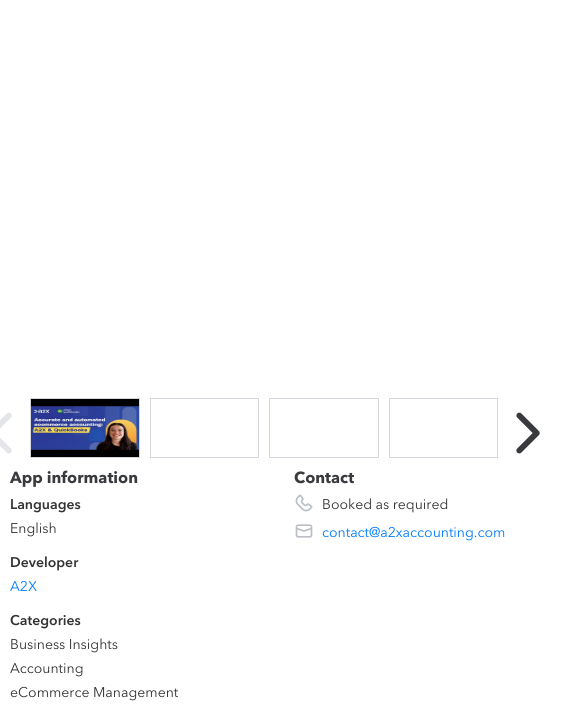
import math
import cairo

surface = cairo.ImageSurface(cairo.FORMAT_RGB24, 568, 706)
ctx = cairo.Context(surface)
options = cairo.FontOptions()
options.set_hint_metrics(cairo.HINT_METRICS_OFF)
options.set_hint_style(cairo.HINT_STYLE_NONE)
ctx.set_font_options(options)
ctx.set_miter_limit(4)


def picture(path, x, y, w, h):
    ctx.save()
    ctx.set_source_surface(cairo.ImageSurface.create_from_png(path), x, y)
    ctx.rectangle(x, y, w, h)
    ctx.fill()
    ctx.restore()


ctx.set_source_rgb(1, 1, 1)
ctx.paint()
picture("img1.png", 0, 412, 12, 42)
ctx.rectangle(30.5, 398.5, 109, 59)
ctx.set_source_rgb(0.831, 0.843, 0.863)
ctx.set_line_width(1)
ctx.stroke()
picture("img2.png", 31, 399, 108, 58)
ctx.rectangle(150.5, 398.5, 108, 59)
ctx.stroke()
ctx.rectangle(269.5, 398.5, 109, 59)
ctx.stroke()
ctx.rectangle(389.5, 398.5, 108, 59)
ctx.stroke()
picture("img3.png", 516, 412, 24, 42)
ctx.select_font_face("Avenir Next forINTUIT", cairo.FONT_SLANT_NORMAL, cairo.FONT_WEIGHT_BOLD)
ctx.set_font_size(16)
ctx.set_source_rgb(0.224, 0.227, 0.239)
ctx.move_to(10, 483)
ctx.show_text("App information")
ctx.select_font_face("Avenir Next forINTUIT SemiBold")
ctx.set_font_size(14)
ctx.set_source_rgb(0.2, 0.2, 0.2)
ctx.move_to(10, 509)
ctx.show_text("Languages")
ctx.select_font_face("Avenir Next forINTUIT")
ctx.move_to(10, 533)
ctx.show_text("English")
ctx.select_font_face("Avenir Next forINTUIT SemiBold")
ctx.move_to(10, 567)
ctx.show_text("Developer")
ctx.select_font_face("Avenir Next forINTUIT")
ctx.set_source_rgb(0, 0.482, 1)
ctx.move_to(10, 591)
ctx.show_text("A2X")
ctx.select_font_face("Avenir Next forINTUIT SemiBold")
ctx.set_source_rgb(0.2, 0.2, 0.2)
ctx.move_to(10, 625)
ctx.show_text("Categories")
ctx.select_font_face("Avenir Next forINTUIT")
ctx.move_to(10, 649)
ctx.show_text("Business Insights")
ctx.move_to(10, 673)
ctx.show_text("Accounting")
ctx.move_to(10, 697)
ctx.show_text("eCommerce Management")
ctx.select_font_face("Avenir Next forINTUIT", cairo.FONT_SLANT_NORMAL, cairo.FONT_WEIGHT_BOLD)
ctx.set_font_size(16)
ctx.set_source_rgb(0.224, 0.227, 0.239)
ctx.move_to(294, 483)
ctx.show_text("Contact")
picture("img4.png", 295, 494, 18, 18)
ctx.select_font_face("Avenir Next forINTUIT")
ctx.set_font_size(14)
ctx.set_source_rgb(0.2, 0.2, 0.2)
ctx.move_to(322, 509)
ctx.show_text("Booked as required")
picture("img5.png", 295, 524, 18, 14)
ctx.set_source_rgb(0, 0.482, 1)
ctx.move_to(322, 537)
ctx.show_text("contact@a2xaccounting.com")
surface.write_to_png("page.png")
